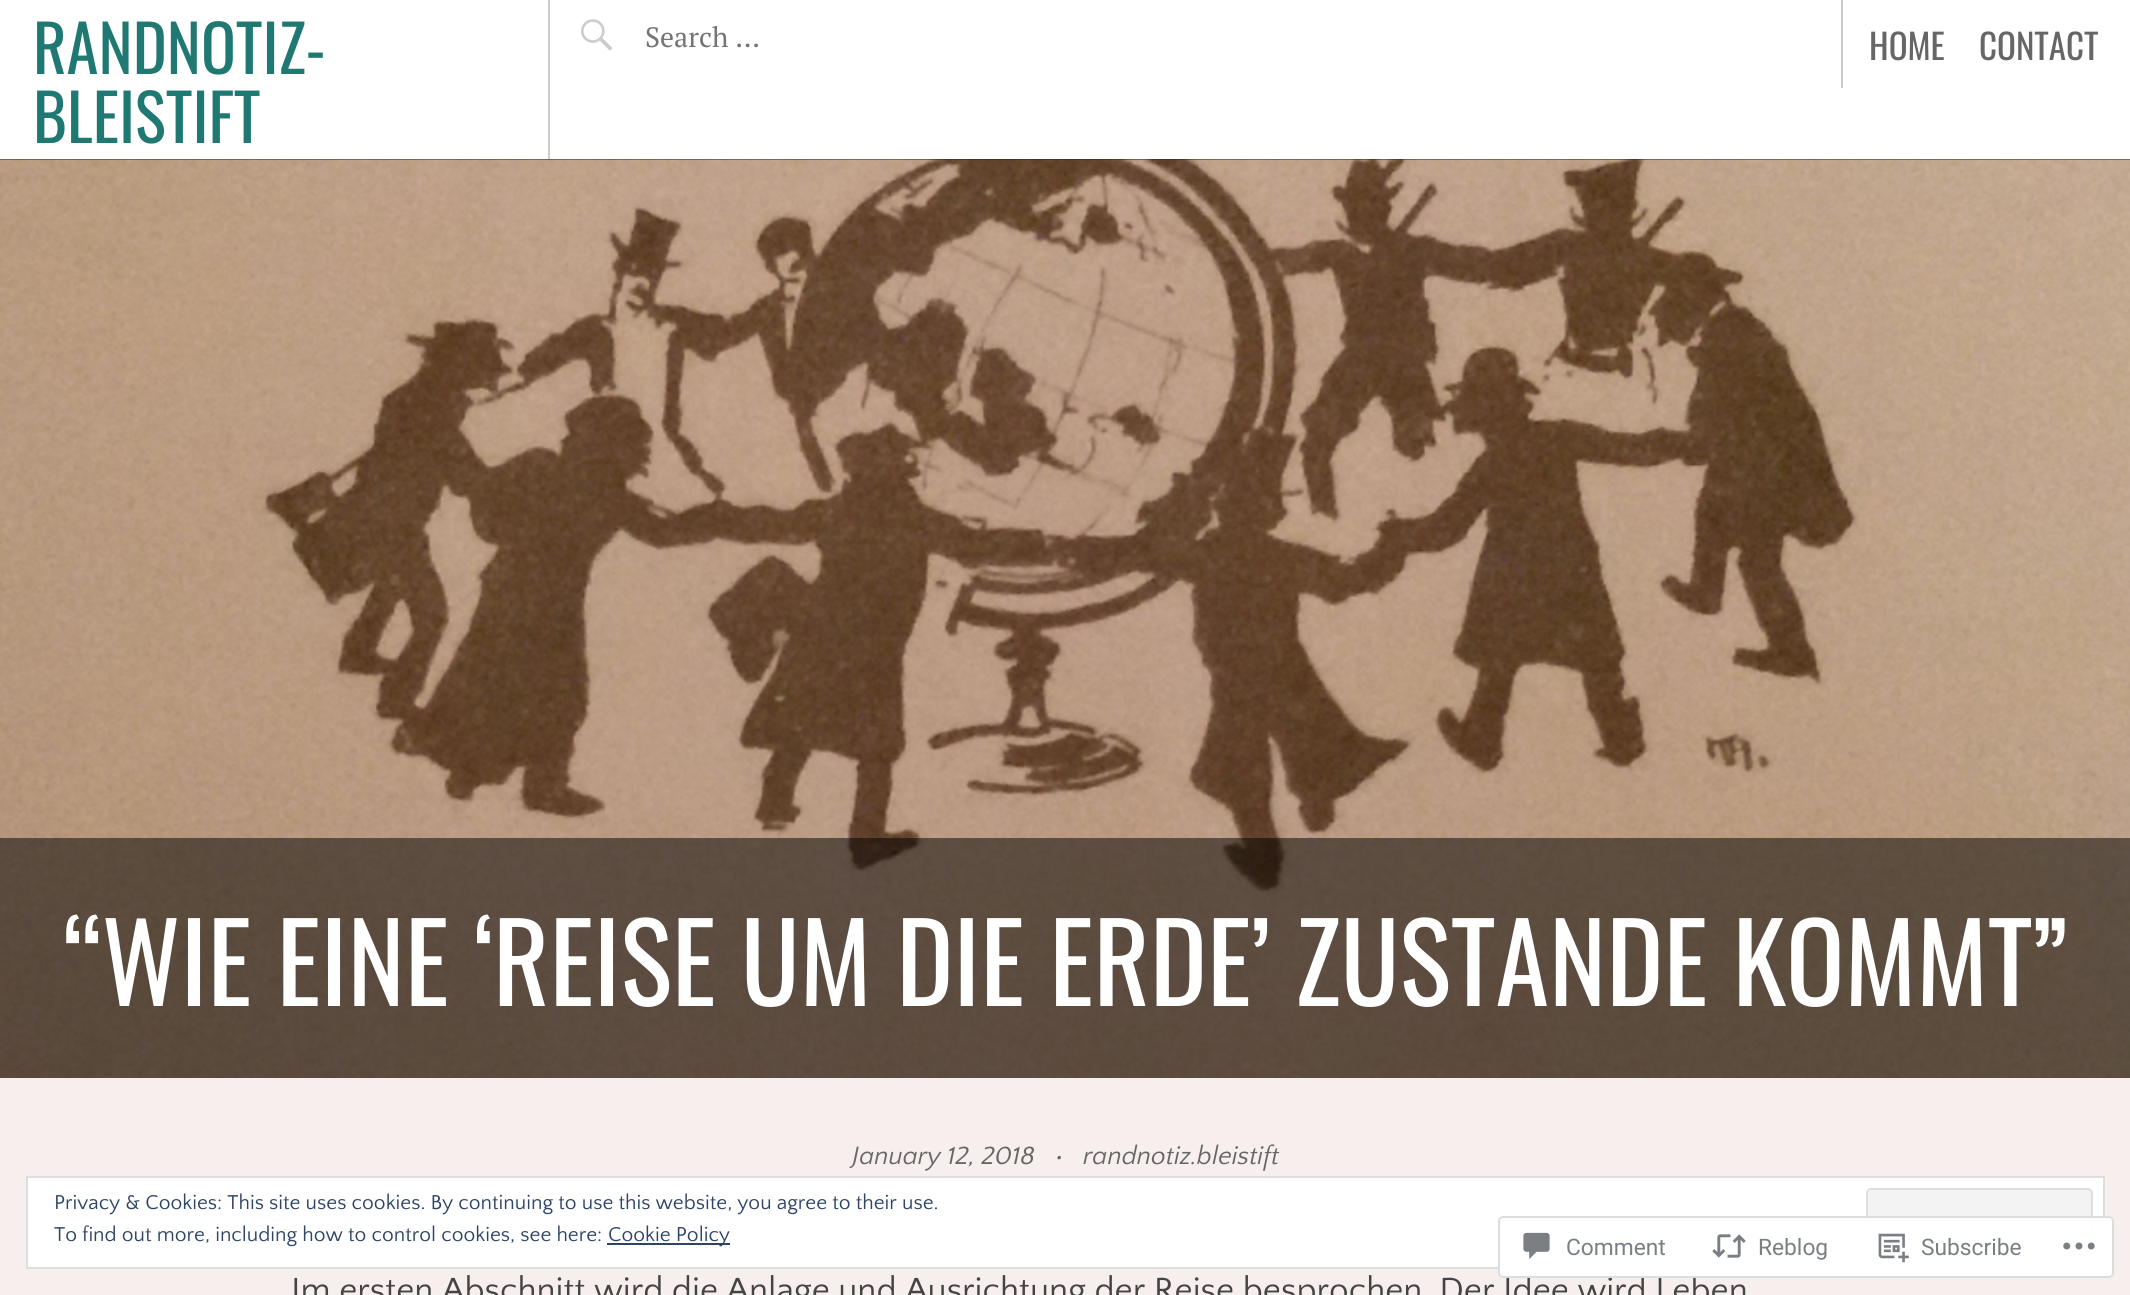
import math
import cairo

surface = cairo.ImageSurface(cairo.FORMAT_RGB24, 2130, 1295)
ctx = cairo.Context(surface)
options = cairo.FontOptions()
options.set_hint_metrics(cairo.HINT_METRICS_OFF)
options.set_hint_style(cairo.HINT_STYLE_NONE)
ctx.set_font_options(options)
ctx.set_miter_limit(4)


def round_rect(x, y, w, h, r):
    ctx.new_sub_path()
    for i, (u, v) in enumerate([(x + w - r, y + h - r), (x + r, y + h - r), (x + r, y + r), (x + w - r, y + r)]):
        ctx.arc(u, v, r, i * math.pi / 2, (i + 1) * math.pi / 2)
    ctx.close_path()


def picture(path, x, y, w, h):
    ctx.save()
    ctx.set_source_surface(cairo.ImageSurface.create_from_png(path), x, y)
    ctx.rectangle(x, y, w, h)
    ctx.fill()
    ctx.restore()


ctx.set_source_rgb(0.965, 0.933, 0.933)
ctx.paint()
ctx.set_source_rgb(1, 1, 1)
ctx.rectangle(0, 0, 2130, 159)
ctx.fill()
ctx.set_source_rgb(0.8, 0.8, 0.8)
ctx.rectangle(548, 0, 2, 159)
ctx.fill()
ctx.select_font_face("Oswald")
ctx.set_font_size(64.75)
ctx.set_source_rgb(0.125, 0.471, 0.447)
ctx.move_to(33, 74)
ctx.show_text("RANDNOTIZ-")
ctx.move_to(33, 143)
ctx.show_text("BLEISTIFT")
picture("img1.png", 581, 19, 32, 32)
ctx.select_font_face("PT Serif")
ctx.set_font_size(28)
ctx.set_source_rgb(0.459, 0.459, 0.459)
ctx.move_to(645, 47)
ctx.show_text("Search …")
ctx.set_source_rgb(0.8, 0.8, 0.8)
ctx.rectangle(1841, 0, 2, 88)
ctx.fill()
ctx.select_font_face("Oswald")
ctx.set_font_size(35)
ctx.set_source_rgb(0.4, 0.4, 0.4)
ctx.move_to(1869, 60)
ctx.show_text("HOME")
ctx.move_to(1979, 60)
ctx.show_text("CONTACT")
ctx.set_source_rgb(0.118, 0.118, 0.118)
ctx.rectangle(0, 159, 2130, 1)
ctx.fill()
picture("img2.png", 0, 159, 2130, 919)
ctx.set_source_rgba(0, 0, 0, 0.5)
ctx.rectangle(0, 838, 2130, 240)
ctx.fill()
ctx.set_font_size(108.5)
ctx.set_source_rgb(1, 1, 1)
ctx.move_to(63, 1006)
ctx.show_text("“WIE EINE ‘REISE UM DIE ERDE’ ZUSTANDE KOMMT”")
ctx.select_font_face("Quattrocento Sans", cairo.FONT_SLANT_ITALIC)
ctx.set_font_size(26.25)
ctx.set_source_rgb(0.4, 0.4, 0.4)
ctx.move_to(852, 1164)
ctx.show_text("January 12, 2018")
ctx.move_to(1055, 1164)
ctx.show_text("•")
ctx.move_to(1083, 1164)
ctx.show_text("randnotiz.bleistift")
ctx.select_font_face("Quattrocento Sans")
ctx.set_font_size(35)
ctx.set_source_rgb(0.267, 0.267, 0.267)
ctx.move_to(291, 1301)
ctx.show_text("Im ersten Abschnitt wird die Anlage und Ausrichtung der Reise besprochen. Der Idee wird Leben")
ctx.set_source_rgb(1, 1, 1)
ctx.rectangle(27, 1177, 2077, 91)
ctx.fill_preserve()
ctx.set_source_rgb(0.871, 0.871, 0.871)
ctx.stroke()
ctx.set_font_size(21)
ctx.set_source_rgb(0.18, 0.267, 0.404)
ctx.move_to(54, 1209)
ctx.show_text("Privacy & Cookies: This site uses cookies. By continuing to use this website, you agree to their use.")
ctx.set_source_rgb(0.953, 0.953, 0.953)
round_rect(1867, 1189, 225, 67, 4)
ctx.fill_preserve()
ctx.set_source_rgb(0.871, 0.871, 0.871)
ctx.stroke()
ctx.set_source_rgb(0.18, 0.267, 0.404)
ctx.move_to(54, 1241)
ctx.show_text("To find out more, including how to control cookies, see here:")
ctx.rectangle(607, 1243, 123, 2)
ctx.fill()
ctx.move_to(608, 1241)
ctx.show_text("Cookie Policy")
ctx.set_source_rgba(1, 1, 1, 0.98)
round_rect(1498, 1216, 616, 62, 5)
ctx.fill()
round_rect(1499, 1217, 614, 60, 4)
ctx.set_source_rgba(0.863, 0.863, 0.871, 0.98)
ctx.stroke()
picture("img3.png", 1523, 1232, 27, 27)
ctx.select_font_face("Roboto")
ctx.set_font_size(22.75)
ctx.set_source_rgb(0.482, 0.498, 0.522)
ctx.move_to(1566, 1255)
ctx.show_text("Comment")
picture("img4.png", 1712, 1234, 34, 24)
ctx.move_to(1758, 1255)
ctx.show_text("Reblog")
picture("img5.png", 1878, 1233, 31, 30)
ctx.move_to(1921, 1255)
ctx.show_text("Subscribe")
picture("img6.png", 2063, 1242, 32, 8)
surface.write_to_png("page.png")
